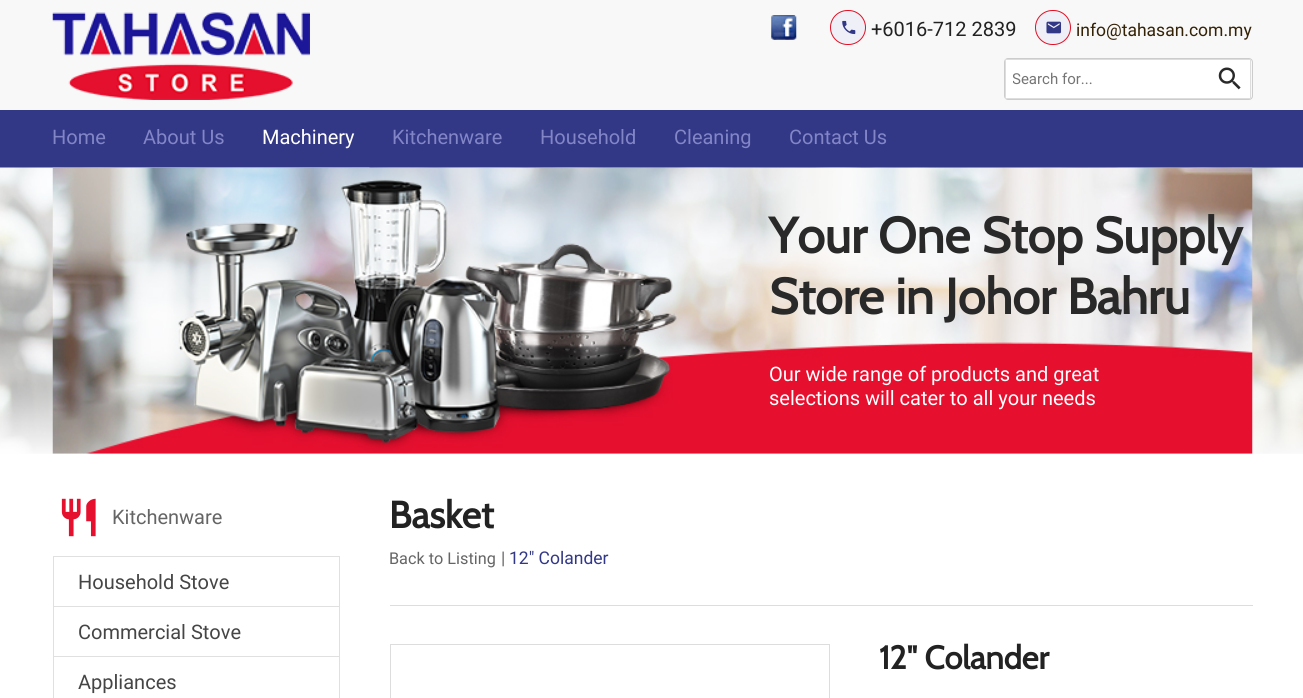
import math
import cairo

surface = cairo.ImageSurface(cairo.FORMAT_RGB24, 1303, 698)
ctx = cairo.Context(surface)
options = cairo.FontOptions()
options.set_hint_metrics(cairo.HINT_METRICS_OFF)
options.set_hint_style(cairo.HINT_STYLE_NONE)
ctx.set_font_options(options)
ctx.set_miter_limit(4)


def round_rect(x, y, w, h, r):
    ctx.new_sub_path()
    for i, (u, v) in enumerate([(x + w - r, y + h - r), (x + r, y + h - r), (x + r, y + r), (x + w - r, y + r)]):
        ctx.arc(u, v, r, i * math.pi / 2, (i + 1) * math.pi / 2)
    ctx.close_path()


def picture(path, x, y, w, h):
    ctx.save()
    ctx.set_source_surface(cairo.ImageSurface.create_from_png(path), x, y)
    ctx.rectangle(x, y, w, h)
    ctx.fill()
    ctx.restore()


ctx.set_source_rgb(1, 1, 1)
ctx.paint()
ctx.set_source_rgb(0.969, 0.969, 0.969)
ctx.rectangle(0, 0, 1303, 110)
ctx.fill()
picture("img1.png", 52, 12, 258, 88)
picture("img2.png", 771, 15, 26, 25)
ctx.set_source_rgb(0.937, 0.941, 0.965)
round_rect(830.5, 10.5, 35, 34, 17)
ctx.fill_preserve()
ctx.set_source_rgb(0.898, 0.059, 0.137)
ctx.set_line_width(1)
ctx.stroke()
picture("img3.png", 842, 20, 14, 15)
ctx.select_font_face("Roboto")
ctx.set_font_size(20)
ctx.set_source_rgb(0.133, 0.133, 0.133)
ctx.move_to(871, 36)
ctx.show_text("+6016-712 2839")
ctx.set_source_rgb(0.937, 0.941, 0.965)
round_rect(1035.5, 10.5, 35, 34, 17)
ctx.fill_preserve()
ctx.set_source_rgb(0.898, 0.059, 0.137)
ctx.stroke()
picture("img4.png", 1046, 21, 16, 13)
ctx.set_font_size(17.5)
ctx.set_source_rgb(0.204, 0.133, 0.027)
ctx.move_to(1076, 36)
ctx.show_text("info@tahasan.com.my")
round_rect(1004.5, 58.5, 248, 41, 3.5)
ctx.set_source_rgb(0.8, 0.8, 0.8)
ctx.stroke()
ctx.set_source_rgb(1, 1, 1)
ctx.rectangle(1006, 60, 244, 38)
ctx.fill()
ctx.set_source_rgb(0.867, 0.867, 0.867)
ctx.rectangle(1005, 59, 246, 1)
ctx.fill()
ctx.rectangle(1005, 98, 210, 1)
ctx.fill()
ctx.rectangle(1005, 59, 1, 40)
ctx.fill()
ctx.save()
ctx.rectangle(1013, 70, 202, 18)
ctx.clip()
ctx.set_font_size(15)
ctx.set_source_rgb(0.459, 0.459, 0.459)
ctx.move_to(1012, 84)
ctx.show_text("Search for...")
ctx.restore()
ctx.rectangle(1250, 59, 1, 40)
ctx.fill()
ctx.rectangle(1215, 98, 36, 1)
ctx.fill()
picture("img5.png", 1218, 67, 23, 23)
ctx.set_source_rgb(0.196, 0.216, 0.525)
ctx.rectangle(0, 110, 1303, 58)
ctx.fill()
ctx.set_font_size(20)
ctx.set_source_rgb(0.51, 0.525, 0.78)
ctx.move_to(52, 144)
ctx.show_text("Home")
ctx.move_to(143, 144)
ctx.show_text("About Us")
ctx.set_source_rgb(1, 1, 1)
ctx.move_to(262, 144)
ctx.show_text("Machinery")
ctx.set_source_rgb(0.51, 0.525, 0.78)
ctx.move_to(392, 144)
ctx.show_text("Kitchenware")
ctx.move_to(540, 144)
ctx.show_text("Household")
ctx.move_to(674, 144)
ctx.show_text("Cleaning")
ctx.move_to(789, 144)
ctx.show_text("Contact Us")
picture("img6.png", 0, 167, 1303, 287)
picture("img7.png", 52, 167, 1201, 287)
ctx.select_font_face("Cabin", cairo.FONT_SLANT_NORMAL, cairo.FONT_WEIGHT_BOLD)
ctx.set_font_size(50)
ctx.set_source_rgb(0.161, 0.161, 0.161)
ctx.move_to(769, 253)
ctx.show_text("Your One Stop Supply")
ctx.move_to(769, 314)
ctx.show_text("Store in Johor Bahru")
ctx.select_font_face("Roboto")
ctx.set_font_size(20)
ctx.set_source_rgb(1, 1, 1)
ctx.move_to(769, 381)
ctx.show_text("Our wide range of products and great")
ctx.move_to(769, 405)
ctx.show_text("selections will cater to all your needs")
picture("img8.png", 61, 498, 35, 39)
ctx.set_source_rgb(0.396, 0.396, 0.396)
ctx.move_to(112, 524)
ctx.show_text("Kitchenware")
ctx.rectangle(53.5, 556.5, 286, 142)
ctx.set_source_rgb(0.878, 0.878, 0.878)
ctx.stroke()
ctx.set_source_rgb(0.271, 0.271, 0.271)
ctx.move_to(78, 589)
ctx.show_text("Household Stove")
ctx.set_source_rgb(0.878, 0.878, 0.878)
ctx.rectangle(54, 606, 285, 1)
ctx.fill()
ctx.set_source_rgb(0.271, 0.271, 0.271)
ctx.move_to(78, 639)
ctx.show_text("Commercial Stove")
ctx.set_source_rgb(0.878, 0.878, 0.878)
ctx.rectangle(54, 656, 285, 1)
ctx.fill()
ctx.set_source_rgb(0.271, 0.271, 0.271)
ctx.move_to(78, 689)
ctx.show_text("Appliances")
ctx.select_font_face("Cabin", cairo.FONT_SLANT_NORMAL, cairo.FONT_WEIGHT_BOLD)
ctx.set_font_size(37.5)
ctx.set_source_rgb(0.133, 0.133, 0.133)
ctx.move_to(389, 528)
ctx.show_text("Basket")
ctx.select_font_face("Roboto")
ctx.set_font_size(16.25)
ctx.set_source_rgb(0.396, 0.396, 0.396)
ctx.move_to(389, 564)
ctx.show_text("Back to Listing")
ctx.set_font_size(17.5)
ctx.move_to(501, 564)
ctx.show_text("|")
ctx.set_source_rgb(0.196, 0.216, 0.525)
ctx.move_to(509, 564)
ctx.show_text("12\" Colander")
ctx.set_source_rgb(0.867, 0.867, 0.867)
ctx.rectangle(390, 605, 863, 1)
ctx.fill()
ctx.rectangle(390.5, 644.5, 439, 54)
ctx.stroke()
ctx.select_font_face("Cabin", cairo.FONT_SLANT_NORMAL, cairo.FONT_WEIGHT_BOLD)
ctx.set_font_size(32.5)
ctx.set_source_rgb(0.133, 0.133, 0.133)
ctx.move_to(879, 669)
ctx.show_text("12\" Colander")
surface.write_to_png("page.png")
